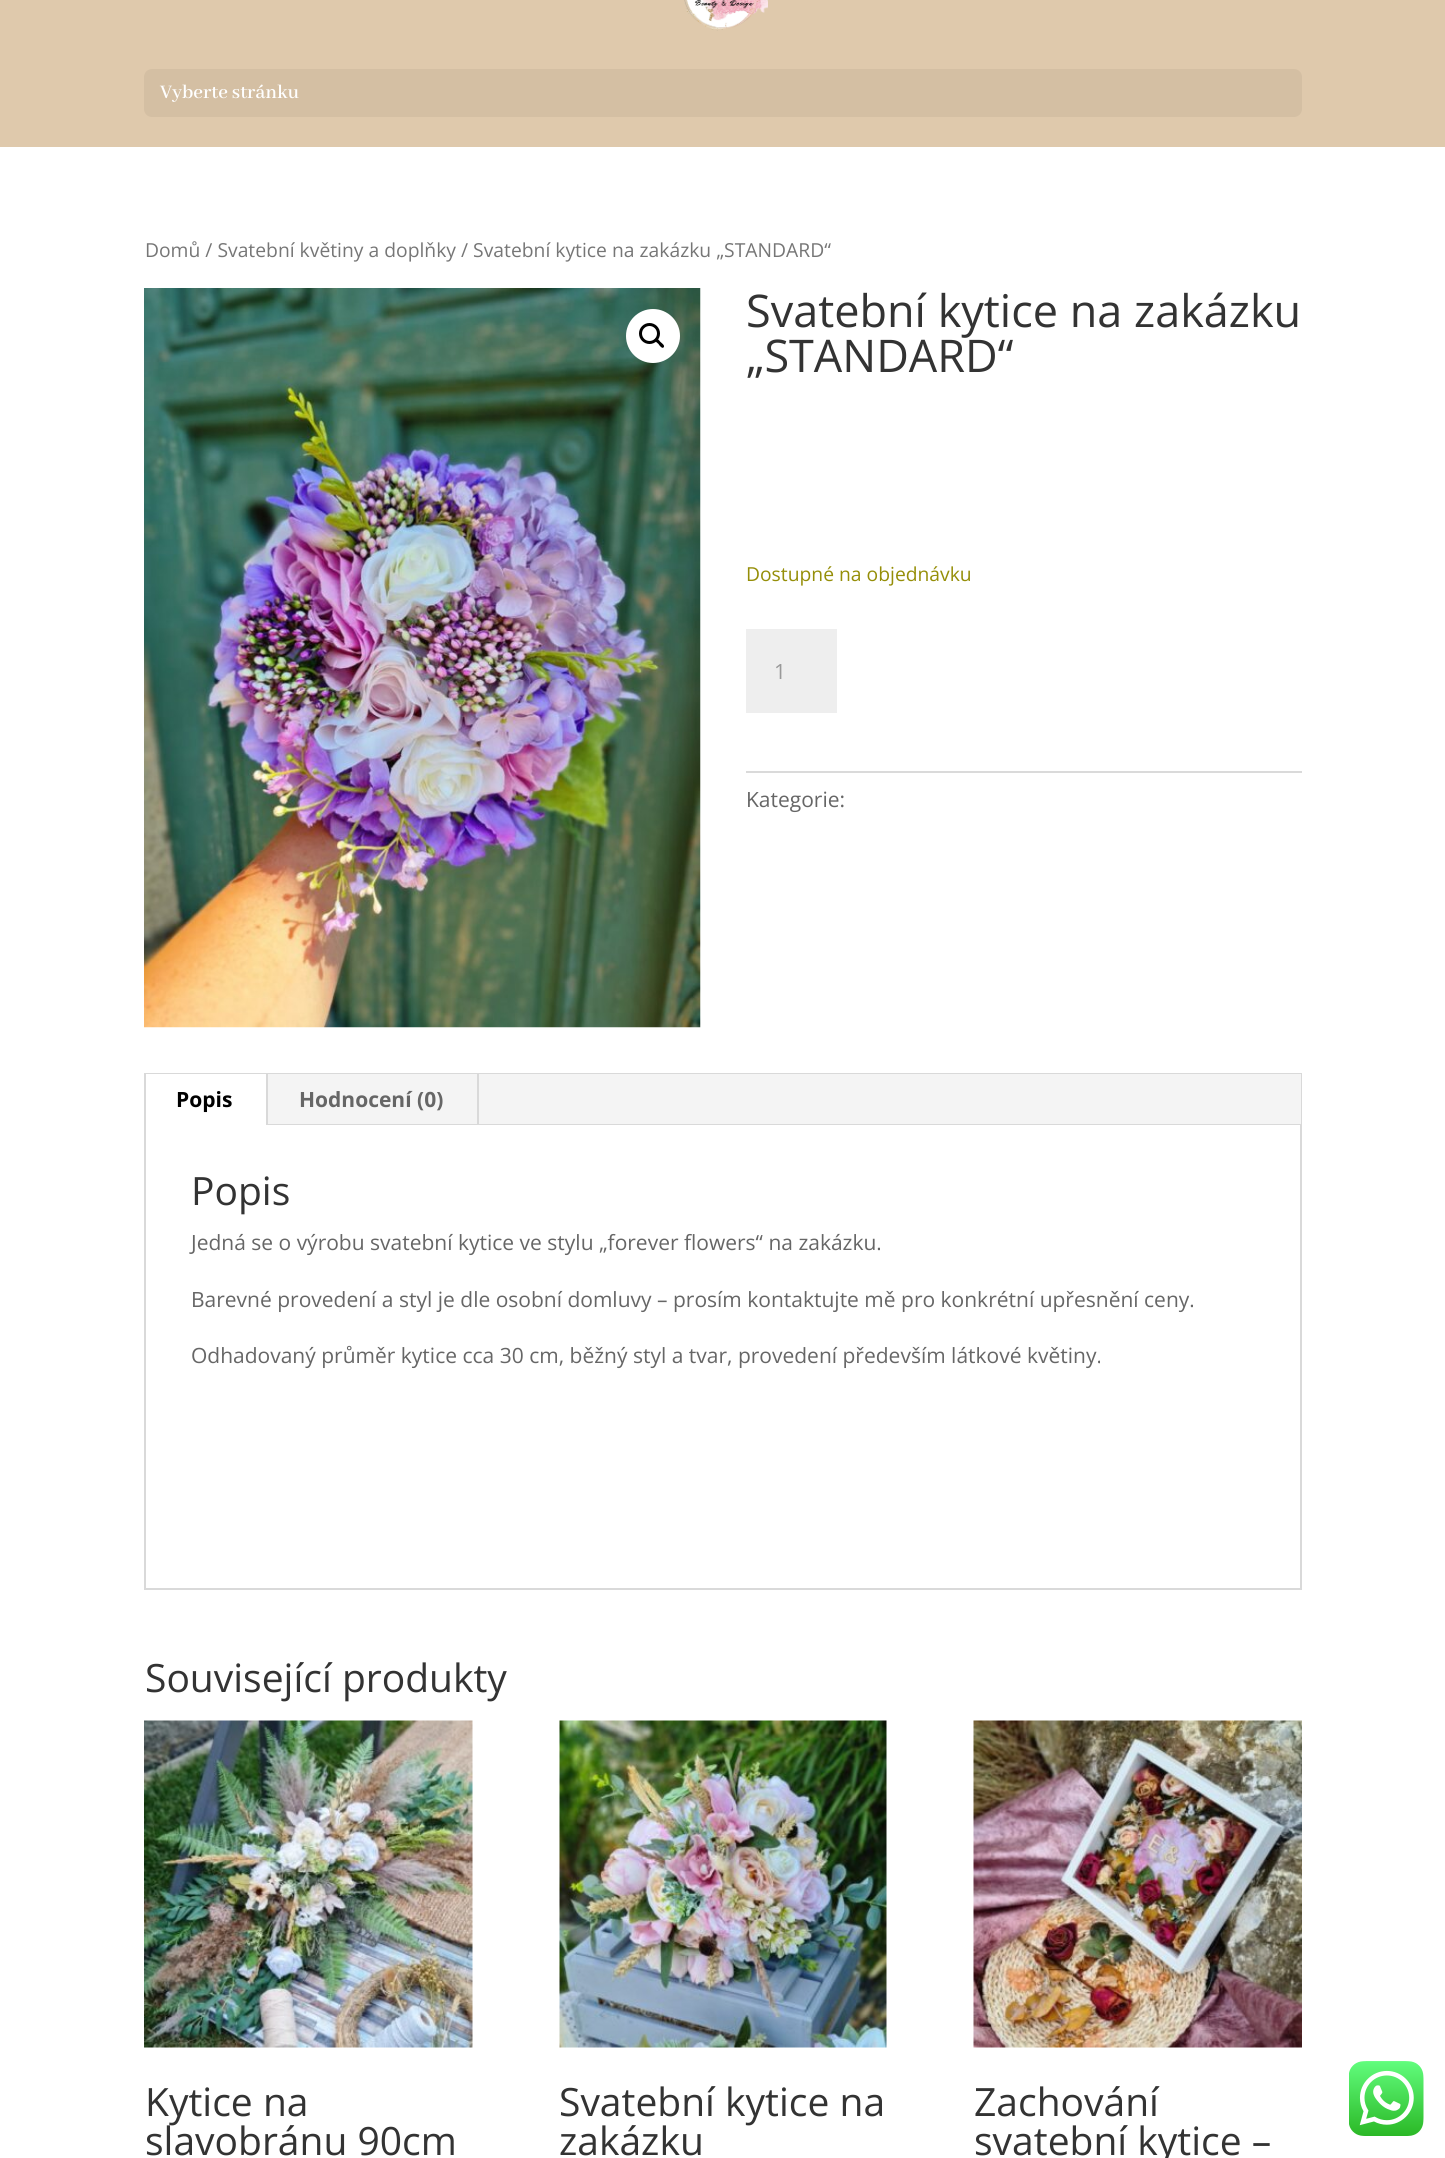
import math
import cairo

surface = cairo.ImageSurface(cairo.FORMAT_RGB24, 1445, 2158)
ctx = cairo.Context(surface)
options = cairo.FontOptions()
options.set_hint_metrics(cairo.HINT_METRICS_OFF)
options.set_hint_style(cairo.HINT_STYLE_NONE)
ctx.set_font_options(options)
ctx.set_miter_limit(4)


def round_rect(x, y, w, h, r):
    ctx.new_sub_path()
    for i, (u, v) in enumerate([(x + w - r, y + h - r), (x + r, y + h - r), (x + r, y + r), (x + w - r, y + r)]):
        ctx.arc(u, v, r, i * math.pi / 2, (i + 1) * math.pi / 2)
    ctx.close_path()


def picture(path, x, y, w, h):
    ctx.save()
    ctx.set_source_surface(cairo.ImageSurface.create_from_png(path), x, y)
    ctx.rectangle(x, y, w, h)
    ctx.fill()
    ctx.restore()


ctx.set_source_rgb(1, 1, 1)
ctx.paint()
ctx.set_source_rgb(0.875, 0.788, 0.675)
ctx.rectangle(0, 0, 1445, 147)
ctx.fill()
picture("img1.png", 684, 0, 84, 31)
ctx.set_source_rgb(0.831, 0.749, 0.639)
round_rect(144, 69, 1158, 48, 8)
ctx.fill()
ctx.select_font_face("Abhaya Libre SemiBold SemiBold")
ctx.set_font_size(21)
ctx.set_source_rgb(1, 1, 1)
ctx.move_to(160, 98)
ctx.show_text("Vyberte stránku")
ctx.select_font_face("Open Sans")
ctx.set_font_size(19.3)
ctx.set_source_rgb(0.463, 0.463, 0.463)
ctx.move_to(145, 257)
ctx.show_text("Domů / Svatební květiny a doplňky / Svatební kytice na zakázku „STANDARD“")
picture("img2.png", 144, 288, 557, 740)
ctx.set_source_rgb(1, 1, 1)
ctx.arc(653, 336, 27, 0, 2 * math.pi)
ctx.fill()
ctx.arc(649.5, 333.5, 9, 0, 2 * math.pi)
ctx.set_source_rgb(0, 0, 0)
ctx.set_line_width(3)
ctx.stroke()
ctx.new_path()
ctx.move_to(655, 339)
ctx.curve_to(657, 337, 659.5, 341, 660.5, 342)
ctx.curve_to(661.5, 343, 665.5, 345.5, 663.5, 347.5)
ctx.curve_to(662, 349, 659, 345, 658.5, 344)
ctx.curve_to(657.5, 343, 653.5, 340.5, 655, 339)
ctx.close_path()
ctx.fill()
ctx.set_font_size(45)
ctx.set_source_rgb(0.2, 0.2, 0.2)
ctx.move_to(746, 327)
ctx.show_text("Svatební kytice na zakázku")
ctx.move_to(746, 372)
ctx.show_text("„STANDARD“")
ctx.set_font_size(19.3)
ctx.set_source_rgb(0.584, 0.557, 0.035)
ctx.move_to(746, 581)
ctx.show_text("Dostupné na objednávku")
ctx.set_source_rgb(0.933, 0.933, 0.933)
ctx.rectangle(746, 629, 91, 84)
ctx.fill()
ctx.set_font_size(21)
ctx.set_source_rgb(0.6, 0.6, 0.6)
ctx.move_to(774, 679)
ctx.show_text("1")
ctx.set_source_rgb(0.855, 0.855, 0.855)
ctx.rectangle(746, 771, 556, 2)
ctx.fill()
ctx.set_source_rgb(0.4, 0.4, 0.4)
ctx.move_to(746, 807)
ctx.show_text("Kategorie:")
ctx.rectangle(145, 1074, 1156, 515)
ctx.set_source_rgb(0.851, 0.851, 0.851)
ctx.set_line_width(2)
ctx.stroke()
ctx.set_source_rgb(0.957, 0.957, 0.957)
ctx.rectangle(268, 1074, 1033, 50)
ctx.fill()
ctx.set_source_rgb(1, 1, 1)
ctx.rectangle(146, 1074, 120, 1)
ctx.fill()
ctx.set_source_rgb(0.851, 0.851, 0.851)
ctx.rectangle(266, 1074, 2, 51)
ctx.fill()
ctx.select_font_face("Open Sans", cairo.FONT_SLANT_NORMAL, cairo.FONT_WEIGHT_BOLD)
ctx.set_source_rgb(0, 0, 0)
ctx.move_to(176, 1107)
ctx.show_text("Popis")
ctx.set_source_rgb(0.851, 0.851, 0.851)
ctx.rectangle(477, 1074, 2, 51)
ctx.fill()
ctx.set_source_rgb(0.4, 0.4, 0.4)
ctx.move_to(299, 1107)
ctx.show_text("Hodnocení (0)")
ctx.set_source_rgb(0.851, 0.851, 0.851)
ctx.rectangle(268, 1124, 1033, 1)
ctx.fill()
ctx.select_font_face("Open Sans")
ctx.set_font_size(39)
ctx.set_source_rgb(0.2, 0.2, 0.2)
ctx.move_to(191, 1205)
ctx.show_text("Popis")
ctx.set_font_size(21)
ctx.set_source_rgb(0.4, 0.4, 0.4)
ctx.move_to(191, 1250)
ctx.show_text("Jedná se o výrobu svatební kytice ve stylu „forever flowers“ na zakázku.")
ctx.move_to(191, 1307)
ctx.show_text("Barevné provedení a styl je dle osobní domluvy – prosím kontaktujte mě pro konkrétní upřesnění ceny.")
ctx.move_to(191, 1363)
ctx.show_text("Odhadovaný průměr kytice cca 30 cm, běžný styl a tvar, provedení především látkové květiny.")
ctx.set_font_size(39)
ctx.set_source_rgb(0.2, 0.2, 0.2)
ctx.move_to(145, 1692)
ctx.show_text("Související produkty")
picture("img3.png", 144, 1720, 329, 328)
ctx.move_to(145, 2116)
ctx.show_text("Kytice na")
ctx.move_to(145, 2155)
ctx.show_text("slavobránu 90cm")
picture("img4.png", 559, 1720, 328, 328)
ctx.move_to(559, 2116)
ctx.show_text("Svatební kytice na")
ctx.move_to(559, 2155)
ctx.show_text("zakázku")
picture("img5.png", 973, 1720, 329, 328)
ctx.move_to(974, 2116)
ctx.show_text("Zachování")
ctx.move_to(974, 2155)
ctx.show_text("svatební kytice –")
picture("img6.png", 1349, 2061, 75, 75)
surface.write_to_png("page.png")
